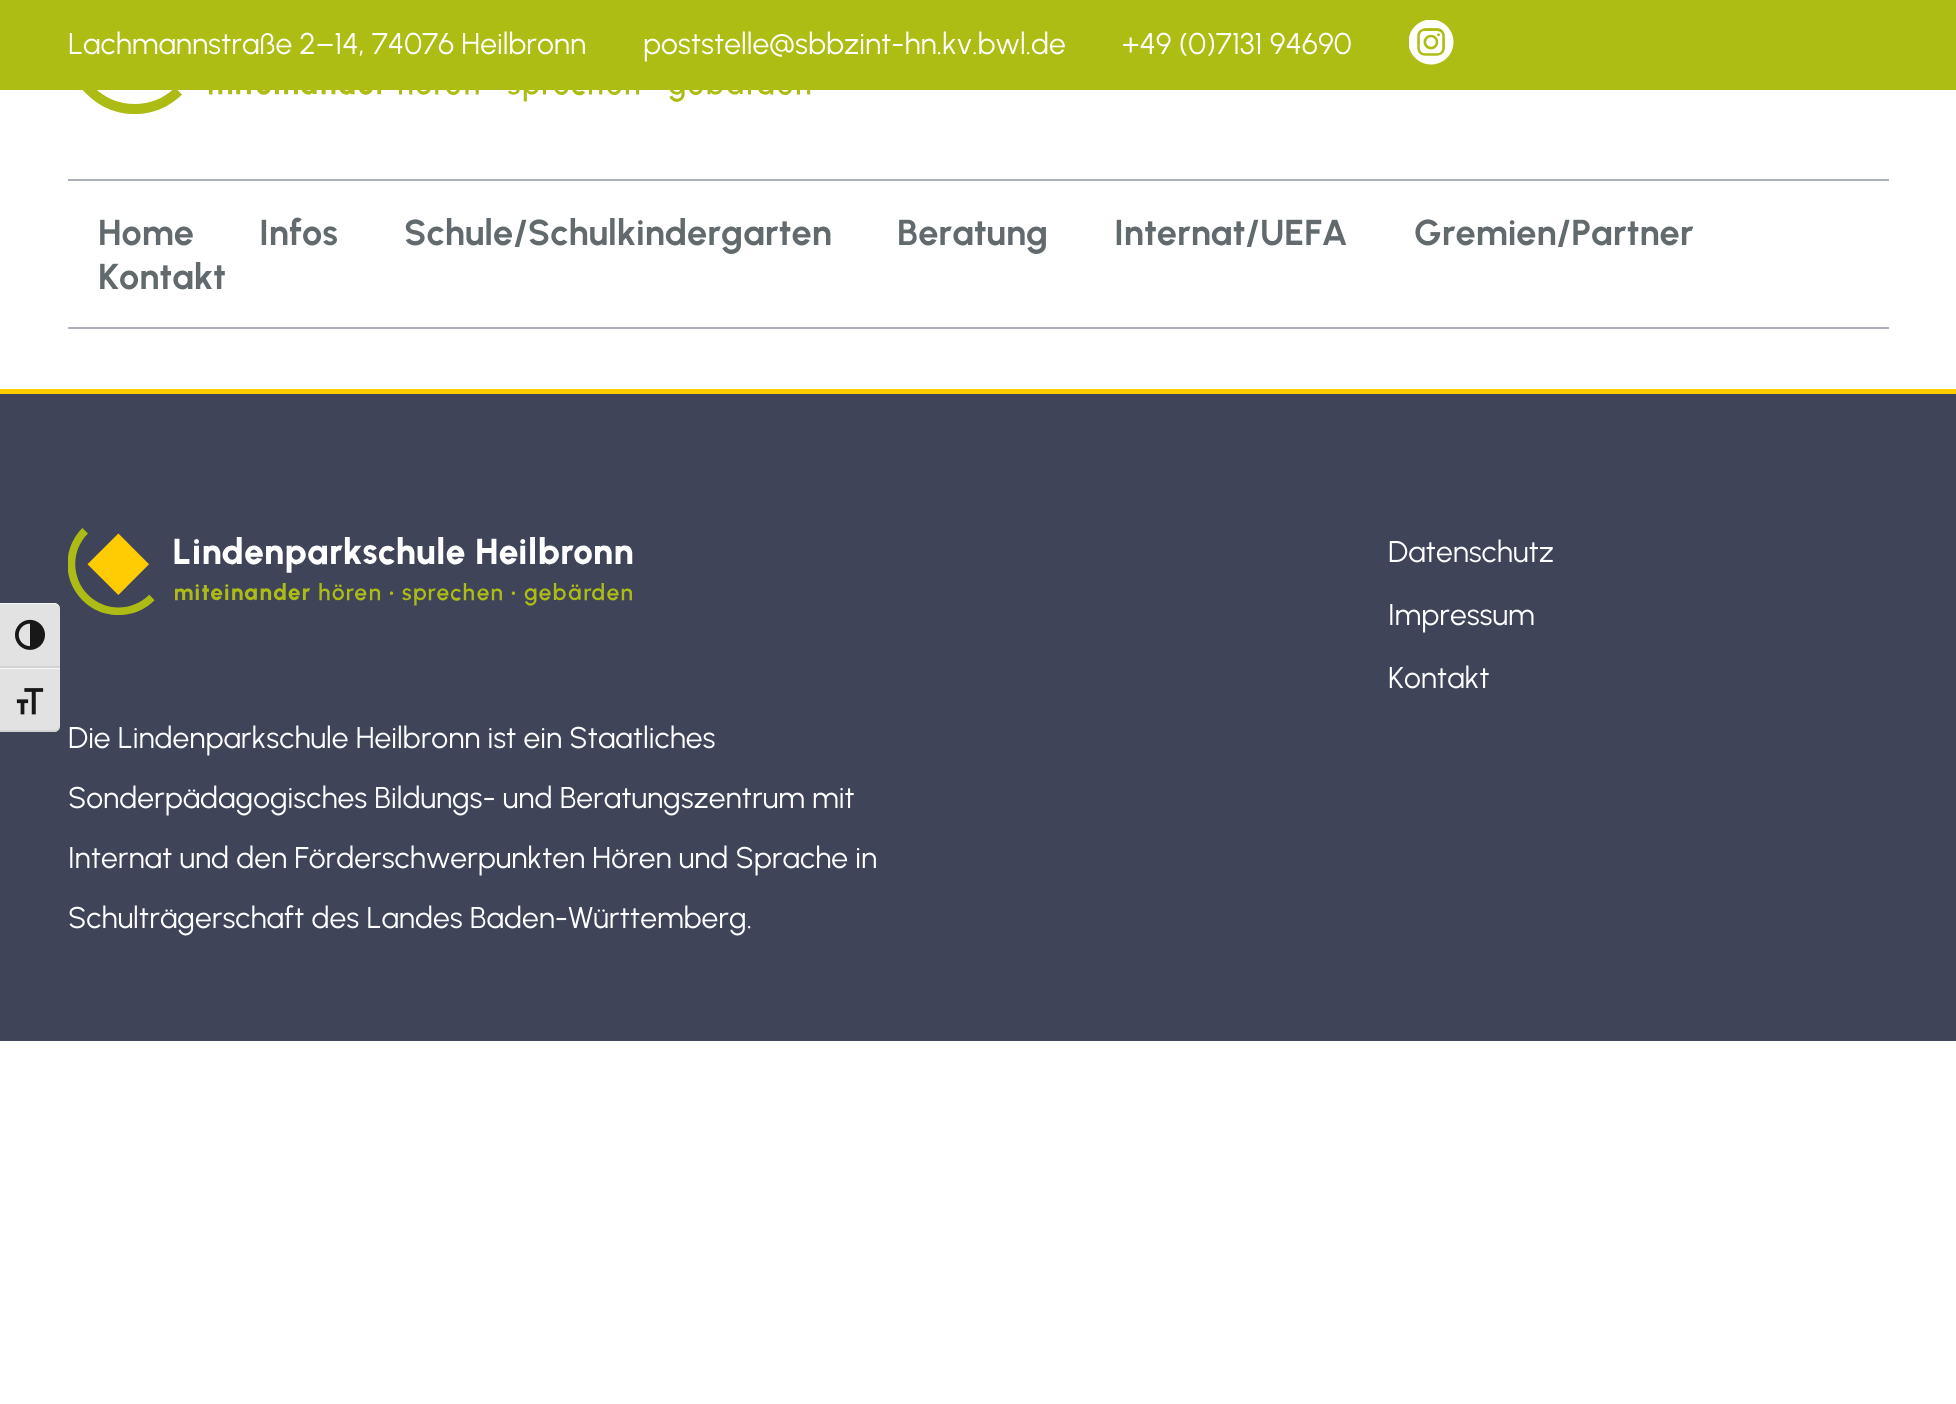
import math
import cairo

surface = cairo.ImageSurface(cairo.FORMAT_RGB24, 1956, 1404)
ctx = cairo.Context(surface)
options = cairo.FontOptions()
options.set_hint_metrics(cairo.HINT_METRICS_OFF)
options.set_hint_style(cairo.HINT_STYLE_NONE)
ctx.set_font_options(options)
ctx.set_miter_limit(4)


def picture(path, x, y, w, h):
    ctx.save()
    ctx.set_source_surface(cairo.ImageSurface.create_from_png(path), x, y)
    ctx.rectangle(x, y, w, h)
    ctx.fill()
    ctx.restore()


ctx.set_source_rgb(1, 1, 1)
ctx.paint()
ctx.set_source_rgb(0.682, 0.741, 0.078)
ctx.rectangle(0, 0, 1956, 90)
ctx.fill()
ctx.select_font_face("Urbanist")
ctx.set_font_size(30)
ctx.set_source_rgb(1, 1, 1)
ctx.move_to(68, 54)
ctx.show_text("Lachmannstraße 2–14, 74076 Heilbronn")
ctx.move_to(643, 54)
ctx.show_text("poststelle@sbbzint-hn.kv.bwl.de")
ctx.move_to(1122, 54)
ctx.show_text("+49 (0)7131 94690")
picture("img1.png", 1409, 20, 45, 45)
picture("img2.png", 83, 90, 728, 24)
ctx.set_source_rgb(0.671, 0.69, 0.733)
ctx.rectangle(68, 179, 1821, 2)
ctx.fill()
ctx.rectangle(68, 327, 1821, 2)
ctx.fill()
ctx.select_font_face("Urbanist", cairo.FONT_SLANT_NORMAL, cairo.FONT_WEIGHT_BOLD)
ctx.set_font_size(36)
ctx.set_source_rgb(0.384, 0.416, 0.431)
ctx.move_to(98, 245)
ctx.show_text("Home")
ctx.move_to(259, 245)
ctx.show_text("Infos")
ctx.move_to(404, 245)
ctx.show_text("Schule/Schulkindergarten")
ctx.move_to(897, 245)
ctx.show_text("Beratung")
ctx.move_to(1114, 245)
ctx.show_text("Internat/UEFA")
ctx.move_to(1414, 245)
ctx.show_text("Gremien/Partner")
ctx.move_to(98, 289)
ctx.show_text("Kontakt")
ctx.set_source_rgb(0.247, 0.267, 0.349)
ctx.rectangle(0, 394, 1956, 647)
ctx.fill()
ctx.set_source_rgb(0.886, 0.886, 0.886)
ctx.new_path()
ctx.move_to(0, 603)
ctx.line_to(54, 603)
ctx.curve_to(57.5, 603, 60, 605.5, 60, 609)
ctx.line_to(60, 668)
ctx.line_to(0, 668)
ctx.close_path()
ctx.fill()
ctx.set_source_rgb(0.961, 0.961, 0.961)
ctx.new_path()
ctx.move_to(0, 603)
ctx.line_to(0, 604)
ctx.line_to(54, 604)
ctx.curve_to(57, 604, 60, 607, 60, 609)
ctx.curve_to(60, 606, 57, 603, 54, 603)
ctx.close_path()
ctx.fill()
ctx.set_source_rgb(0.824, 0.824, 0.824)
ctx.rectangle(0, 666, 60, 2)
ctx.fill()
picture("img3.png", 15, 619, 30, 31)
ctx.set_source_rgb(0.886, 0.886, 0.886)
ctx.new_path()
ctx.move_to(0, 668)
ctx.line_to(60, 668)
ctx.line_to(60, 726)
ctx.curve_to(60, 729.5, 57.5, 732, 54, 732)
ctx.line_to(0, 732)
ctx.close_path()
ctx.fill()
ctx.set_source_rgb(0.961, 0.961, 0.961)
ctx.rectangle(0, 668, 60, 1)
ctx.fill()
ctx.set_source_rgb(0.824, 0.824, 0.824)
ctx.new_path()
ctx.move_to(0, 730)
ctx.line_to(0, 732)
ctx.line_to(54, 732)
ctx.curve_to(57, 732, 60, 729, 60, 726)
ctx.curve_to(60, 728, 57, 730, 54, 730)
ctx.close_path()
ctx.fill()
picture("img4.png", 16, 688, 28, 27)
ctx.set_source_rgb(1, 0.8, 0)
ctx.rectangle(0, 389, 1956, 5)
ctx.fill()
ctx.select_font_face("Urbanist")
ctx.set_font_size(30)
ctx.set_source_rgb(1, 1, 1)
ctx.move_to(1388, 562)
ctx.show_text("Datenschutz")
ctx.move_to(1388, 625)
ctx.show_text("Impressum")
ctx.move_to(1388, 688)
ctx.show_text("Kontakt")
picture("img5.png", 68, 528, 565, 87)
ctx.move_to(68, 748)
ctx.show_text("Die Lindenparkschule Heilbronn ist ein Staatliches")
ctx.move_to(68, 808)
ctx.show_text("Sonderpädagogisches Bildungs- und Beratungszentrum mit")
ctx.move_to(68, 868)
ctx.show_text("Internat und den Förderschwerpunkten Hören und Sprache in")
ctx.move_to(68, 928)
ctx.show_text("Schulträgerschaft des Landes Baden-Württemberg.")
surface.write_to_png("page.png")
